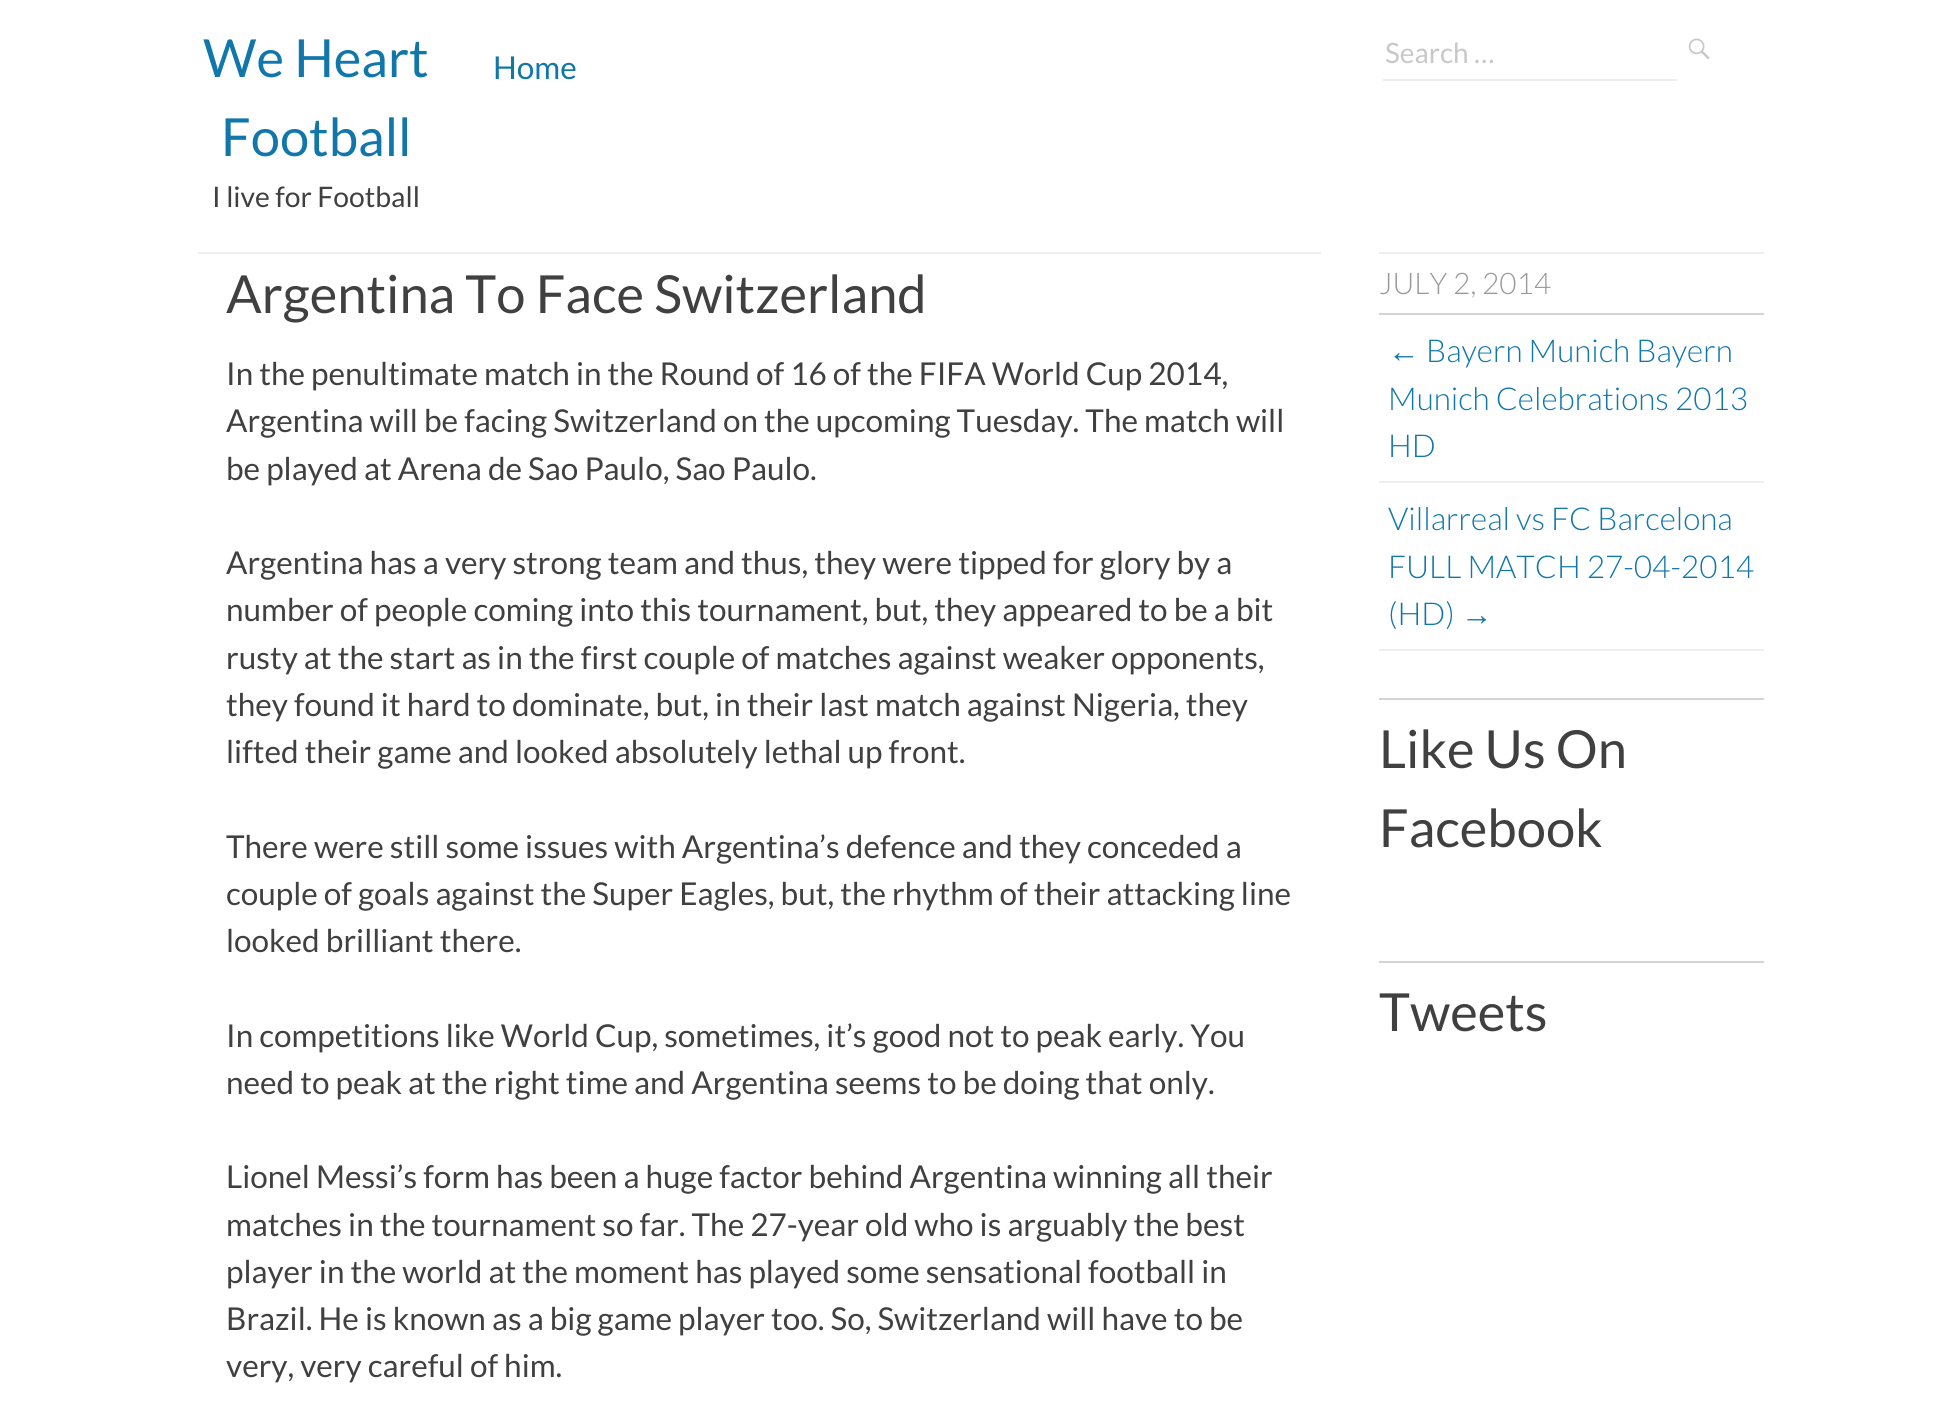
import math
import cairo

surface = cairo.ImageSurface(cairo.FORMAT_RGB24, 1941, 1403)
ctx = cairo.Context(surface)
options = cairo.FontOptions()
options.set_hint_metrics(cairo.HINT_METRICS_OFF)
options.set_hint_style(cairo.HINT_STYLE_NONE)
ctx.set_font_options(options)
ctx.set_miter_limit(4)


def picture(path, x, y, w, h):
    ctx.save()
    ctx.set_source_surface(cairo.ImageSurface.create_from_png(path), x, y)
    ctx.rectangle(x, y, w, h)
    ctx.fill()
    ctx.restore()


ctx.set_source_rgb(1, 1, 1)
ctx.paint()
ctx.select_font_face("Lato")
ctx.set_font_size(52.5)
ctx.set_source_rgb(0.067, 0.467, 0.667)
ctx.move_to(203, 77)
ctx.show_text("We Heart")
ctx.move_to(221, 156)
ctx.show_text("Football")
ctx.set_font_size(28.25)
ctx.set_source_rgb(0.251, 0.251, 0.251)
ctx.move_to(212, 207)
ctx.show_text("I live for Football")
ctx.set_source_rgb(0.933, 0.933, 0.933)
ctx.rectangle(1383, 79, 294, 2)
ctx.fill()
ctx.set_font_size(28)
ctx.set_source_rgb(0.784, 0.784, 0.784)
ctx.move_to(1385, 63)
ctx.show_text("Search …")
picture("img1.png", 1688, 38, 22, 22)
ctx.set_font_size(31.5)
ctx.set_source_rgb(0.067, 0.467, 0.667)
ctx.move_to(493, 79)
ctx.show_text("Home")
ctx.set_source_rgb(0.933, 0.933, 0.933)
ctx.rectangle(198, 252, 1123, 2)
ctx.fill()
ctx.set_font_size(52.5)
ctx.set_source_rgb(0.251, 0.251, 0.251)
ctx.move_to(226, 313)
ctx.show_text("Argentina To Face Switzerland")
ctx.set_font_size(31.5)
ctx.move_to(226, 385)
ctx.show_text("In the penultimate match in the Round of 16 of the FIFA World Cup 2014,")
ctx.move_to(226, 432)
ctx.show_text("Argentina will be facing Switzerland on the upcoming Tuesday. The match will")
ctx.move_to(226, 480)
ctx.show_text("be played at Arena de Sao Paulo, Sao Paulo.")
ctx.move_to(226, 574)
ctx.show_text("Argentina has a very strong team and thus, they were tipped for glory by a")
ctx.move_to(226, 621)
ctx.show_text("number of people coming into this tournament, but, they appeared to be a bit")
ctx.move_to(226, 669)
ctx.show_text("rusty at the start as in the first couple of matches against weaker opponents,")
ctx.move_to(226, 716)
ctx.show_text("they found it hard to dominate, but, in their last match against Nigeria, they")
ctx.move_to(226, 763)
ctx.show_text("lifted their game and looked absolutely lethal up front.")
ctx.move_to(226, 858)
ctx.show_text("There were still some issues with Argentina’s defence and they conceded a")
ctx.move_to(226, 905)
ctx.show_text("couple of goals against the Super Eagles, but, the rhythm of their attacking line")
ctx.move_to(226, 952)
ctx.show_text("looked brilliant there.")
ctx.move_to(226, 1047)
ctx.show_text("In competitions like World Cup, sometimes, it’s good not to peak early. You")
ctx.move_to(226, 1094)
ctx.show_text("need to peak at the right time and Argentina seems to be doing that only.")
ctx.move_to(226, 1188)
ctx.show_text("Lionel Messi’s form has been a huge factor behind Argentina winning all their")
ctx.move_to(226, 1236)
ctx.show_text("matches in the tournament so far. The 27-year old who is arguably the best")
ctx.move_to(226, 1283)
ctx.show_text("player in the world at the moment has played some sensational football in")
ctx.move_to(226, 1330)
ctx.show_text("Brazil. He is known as a big game player too. So, Switzerland will have to be")
ctx.move_to(226, 1377)
ctx.show_text("very, very careful of him.")
ctx.set_source_rgb(0.933, 0.933, 0.933)
ctx.rectangle(1379, 252, 385, 2)
ctx.fill()
ctx.select_font_face("Lato Light")
ctx.set_font_size(29.75)
ctx.set_source_rgb(0.6, 0.6, 0.6)
ctx.move_to(1379, 294)
ctx.show_text("JULY 2, 2014")
ctx.set_source_rgb(0.831, 0.831, 0.831)
ctx.rectangle(1379, 313, 385, 2)
ctx.fill()
ctx.set_source_rgb(0.933, 0.933, 0.933)
ctx.rectangle(1379, 481, 385, 2)
ctx.fill()
ctx.select_font_face("Liberation Sans")
ctx.set_font_size(31.5)
ctx.set_source_rgb(0.067, 0.467, 0.667)
ctx.move_to(1388, 362)
ctx.show_text("←")
ctx.select_font_face("Lato Light")
ctx.move_to(1426, 362)
ctx.show_text("Bayern Munich Bayern")
ctx.move_to(1388, 410)
ctx.show_text("Munich Celebrations 2013")
ctx.move_to(1388, 457)
ctx.show_text("HD")
ctx.set_source_rgb(0.933, 0.933, 0.933)
ctx.rectangle(1379, 649, 385, 2)
ctx.fill()
ctx.set_source_rgb(0.067, 0.467, 0.667)
ctx.move_to(1388, 530)
ctx.show_text("Villarreal vs FC Barcelona")
ctx.move_to(1388, 578)
ctx.show_text("FULL MATCH 27-04-2014")
ctx.move_to(1388, 625)
ctx.show_text("(HD)")
ctx.select_font_face("Liberation Sans")
ctx.move_to(1461, 625)
ctx.show_text("→")
ctx.set_source_rgb(0.831, 0.831, 0.831)
ctx.rectangle(1379, 698, 385, 2)
ctx.fill()
ctx.select_font_face("Lato")
ctx.set_font_size(52.5)
ctx.set_source_rgb(0.251, 0.251, 0.251)
ctx.move_to(1379, 768)
ctx.show_text("Like Us On")
ctx.move_to(1379, 847)
ctx.show_text("Facebook")
ctx.set_source_rgb(0.831, 0.831, 0.831)
ctx.rectangle(1379, 961, 385, 2)
ctx.fill()
ctx.set_source_rgb(0.251, 0.251, 0.251)
ctx.move_to(1379, 1031)
ctx.show_text("Tweets")
surface.write_to_png("page.png")
